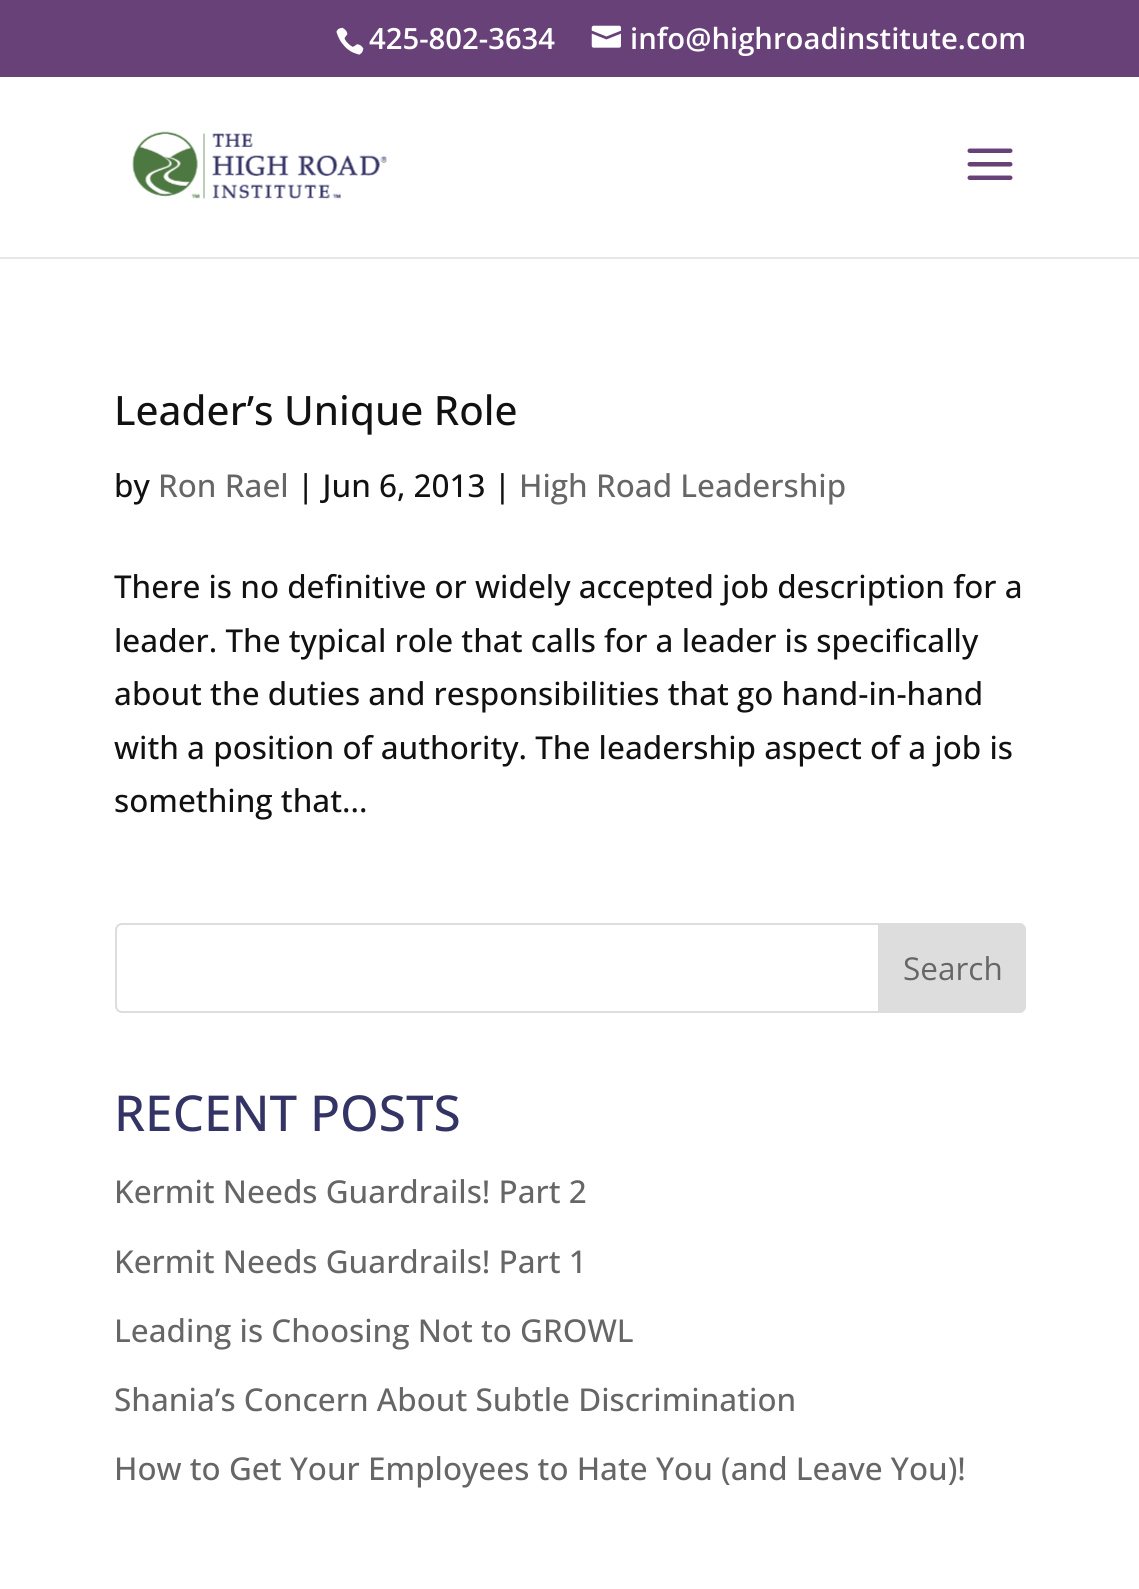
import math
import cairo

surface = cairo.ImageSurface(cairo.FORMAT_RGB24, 1139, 1589)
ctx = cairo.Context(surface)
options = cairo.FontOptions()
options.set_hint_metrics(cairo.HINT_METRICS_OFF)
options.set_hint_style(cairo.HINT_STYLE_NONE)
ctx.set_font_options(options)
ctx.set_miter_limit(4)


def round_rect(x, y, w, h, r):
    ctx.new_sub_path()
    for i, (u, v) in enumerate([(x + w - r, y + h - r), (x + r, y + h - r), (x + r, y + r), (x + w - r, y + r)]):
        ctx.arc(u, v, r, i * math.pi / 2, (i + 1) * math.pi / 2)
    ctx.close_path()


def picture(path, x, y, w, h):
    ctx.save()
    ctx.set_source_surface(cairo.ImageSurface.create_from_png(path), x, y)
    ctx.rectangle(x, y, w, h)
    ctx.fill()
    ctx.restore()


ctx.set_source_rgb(1, 1, 1)
ctx.paint()
ctx.set_source_rgb(0.408, 0.255, 0.475)
ctx.rectangle(0, 0, 1139, 77)
ctx.fill()
picture("img1.png", 336, 27, 28, 28)
ctx.select_font_face("Open Sans SemiBold")
ctx.set_font_size(29.25)
ctx.set_source_rgb(1, 1, 1)
ctx.move_to(369, 49)
ctx.show_text("425-802-3634")
picture("img2.png", 591, 25, 30, 23)
ctx.move_to(630, 49)
ctx.show_text("info@highroadinstitute.com")
ctx.set_source_rgb(0.902, 0.902, 0.902)
ctx.new_path()
ctx.move_to(0, 256)
ctx.line_to(0, 259)
ctx.line_to(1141, 259)
ctx.line_to(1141, 79)
ctx.line_to(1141, 256)
ctx.close_path()
ctx.fill()
ctx.set_source_rgb(1, 1, 1)
ctx.rectangle(0, 256, 1139, 1)
ctx.fill()
picture("img3.png", 132, 131, 255, 68)
picture("img4.png", 967, 148, 46, 32)
ctx.select_font_face("Open Sans Medium")
ctx.set_font_size(40.5)
ctx.set_source_rgb(0.067, 0.067, 0.067)
ctx.move_to(114, 425)
ctx.show_text("Leader’s Unique Role")
ctx.set_font_size(31.5)
ctx.move_to(114, 497)
ctx.show_text("by")
ctx.set_source_rgb(0.4, 0.4, 0.4)
ctx.move_to(158, 497)
ctx.show_text("Ron Rael")
ctx.set_source_rgb(0.067, 0.067, 0.067)
ctx.move_to(297, 497)
ctx.show_text("| Jun 6, 2013 |")
ctx.set_source_rgb(0.4, 0.4, 0.4)
ctx.move_to(519, 497)
ctx.show_text("High Road Leadership")
ctx.set_source_rgb(0.067, 0.067, 0.067)
ctx.move_to(114, 598)
ctx.show_text("There is no definitive or widely accepted job description for a")
ctx.move_to(114, 652)
ctx.show_text("leader. The typical role that calls for a leader is specifically")
ctx.move_to(114, 705)
ctx.show_text("about the duties and responsibilities that go hand-in-hand")
ctx.move_to(114, 759)
ctx.show_text("with a position of authority. The leadership aspect of a job is")
ctx.move_to(114, 812)
ctx.show_text("something that...")
round_rect(116, 924, 909, 88, 6)
ctx.set_source_rgb(0.867, 0.867, 0.867)
ctx.stroke()
ctx.new_path()
ctx.move_to(879, 924)
ctx.line_to(1019, 924)
ctx.curve_to(1022.5, 924, 1025, 926.5, 1025, 930)
ctx.line_to(1025, 1006)
ctx.curve_to(1025, 1009.5, 1022.5, 1012, 1019, 1012)
ctx.line_to(879, 1012)
ctx.close_path()
ctx.fill_preserve()
ctx.stroke()
ctx.select_font_face("Open Sans")
ctx.set_source_rgb(0.4, 0.4, 0.4)
ctx.move_to(903, 980)
ctx.show_text("Search")
ctx.select_font_face("Open Sans Medium")
ctx.set_font_size(49.5)
ctx.set_source_rgb(0.2, 0.2, 0.4)
ctx.move_to(114, 1131)
ctx.show_text("RECENT POSTS")
ctx.set_font_size(31.5)
ctx.set_source_rgb(0.4, 0.4, 0.4)
ctx.move_to(114, 1203)
ctx.show_text("Kermit Needs Guardrails! Part 2")
ctx.move_to(114, 1273)
ctx.show_text("Kermit Needs Guardrails! Part 1")
ctx.move_to(114, 1342)
ctx.show_text("Leading is Choosing Not to GROWL")
ctx.move_to(114, 1411)
ctx.show_text("Shania’s Concern About Subtle Discrimination")
ctx.move_to(114, 1480)
ctx.show_text("How to Get Your Employees to Hate You (and Leave You)!")
surface.write_to_png("page.png")
